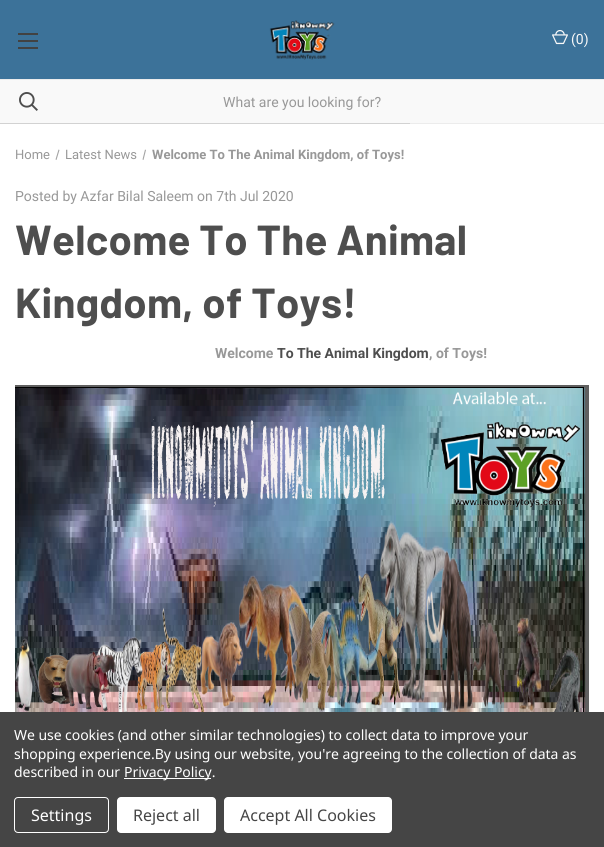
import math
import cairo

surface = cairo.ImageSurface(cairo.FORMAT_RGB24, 604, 847)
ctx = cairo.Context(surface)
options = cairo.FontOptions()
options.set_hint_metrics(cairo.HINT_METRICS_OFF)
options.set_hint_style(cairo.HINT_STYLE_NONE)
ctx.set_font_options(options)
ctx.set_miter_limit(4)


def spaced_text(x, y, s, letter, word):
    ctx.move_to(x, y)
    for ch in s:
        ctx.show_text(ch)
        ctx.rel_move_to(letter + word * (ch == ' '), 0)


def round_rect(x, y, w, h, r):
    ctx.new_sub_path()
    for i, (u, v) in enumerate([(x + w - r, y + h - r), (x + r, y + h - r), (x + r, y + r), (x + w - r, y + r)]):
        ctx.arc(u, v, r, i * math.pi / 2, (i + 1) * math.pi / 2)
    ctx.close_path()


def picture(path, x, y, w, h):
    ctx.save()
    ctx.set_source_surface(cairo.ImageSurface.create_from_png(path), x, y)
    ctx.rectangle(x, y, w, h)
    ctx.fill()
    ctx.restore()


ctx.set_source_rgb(1, 1, 1)
ctx.paint()
ctx.set_source_rgb(0.235, 0.447, 0.6)
ctx.rectangle(0, 0, 604, 79)
ctx.fill()
ctx.set_source_rgb(0.922, 0.922, 0.922)
ctx.rectangle(410, 123, 194, 1)
ctx.fill()
ctx.set_source_rgb(0.259, 0.259, 0.259)
ctx.rectangle(18, 40, 20, 2)
ctx.fill()
ctx.rectangle(18, 33, 20, 2)
ctx.fill()
ctx.rectangle(18, 47, 20, 2)
ctx.fill()
picture("img1.png", 269, 20, 66, 40)
picture("img2.png", 552, 30, 16, 15)
ctx.select_font_face("Roboto")
ctx.set_font_size(14)
ctx.set_source_rgb(0.976, 0.976, 0.976)
ctx.move_to(571, 44)
ctx.show_text("(0)")
ctx.rectangle(0, 80, 604, 43)
ctx.fill()
picture("img3.png", 19, 92, 19, 19)
ctx.set_source_rgb(0.922, 0.922, 0.922)
ctx.rectangle(0, 79, 604, 1)
ctx.fill()
ctx.set_source_rgb(0.596, 0.596, 0.596)
ctx.move_to(223, 107)
ctx.show_text("What are you looking for?")
ctx.set_source_rgb(0.824, 0.824, 0.824)
ctx.rectangle(0, 123, 410, 1)
ctx.fill()
ctx.set_font_size(13)
ctx.set_source_rgb(0.596, 0.596, 0.596)
ctx.move_to(15, 159)
ctx.show_text("Home")
ctx.set_source_rgb(0.639, 0.639, 0.639)
ctx.new_path()
ctx.move_to(58.5, 149.5)
ctx.line_to(59.5, 150)
ctx.line_to(56.5, 160)
ctx.line_to(55.5, 159.5)
ctx.close_path()
ctx.fill()
ctx.set_source_rgb(0.596, 0.596, 0.596)
ctx.move_to(65, 159)
ctx.show_text("Latest News")
ctx.set_source_rgb(0.639, 0.639, 0.639)
ctx.new_path()
ctx.move_to(145, 149.5)
ctx.line_to(146, 150)
ctx.line_to(143.5, 160)
ctx.line_to(142.5, 159.5)
ctx.close_path()
ctx.fill()
ctx.select_font_face("Roboto", cairo.FONT_SLANT_NORMAL, cairo.FONT_WEIGHT_BOLD)
ctx.set_source_rgb(0.596, 0.596, 0.596)
ctx.move_to(152, 159)
ctx.show_text("Welcome To The Animal Kingdom, of Toys!")
ctx.select_font_face("Roboto")
ctx.set_font_size(14)
ctx.move_to(15, 201)
ctx.show_text("Posted by Azfar Bilal Saleem on 7th Jul 2020")
ctx.select_font_face("Barlow", cairo.FONT_SLANT_NORMAL, cairo.FONT_WEIGHT_BOLD)
ctx.set_font_size(42)
ctx.set_source_rgb(0.306, 0.306, 0.306)
spaced_text(15, 255, "Welcome To The Animal", 0.25, 0)
spaced_text(15, 318, "Kingdom, of Toys!", 0.25, 0)
ctx.select_font_face("Roboto", cairo.FONT_SLANT_NORMAL, cairo.FONT_WEIGHT_BOLD)
ctx.set_font_size(14)
ctx.set_source_rgb(0.596, 0.596, 0.596)
ctx.move_to(215, 358)
ctx.show_text("Welcome")
ctx.set_source_rgb(0.306, 0.306, 0.306)
ctx.move_to(277, 358)
ctx.show_text("To The Animal Kingdom")
ctx.set_source_rgb(0.596, 0.596, 0.596)
ctx.move_to(429, 358)
ctx.show_text(", of Toys!")
picture("img4.png", 15, 385, 574, 327)
ctx.set_source_rgb(0.271, 0.271, 0.271)
ctx.rectangle(0, 712, 604, 135)
ctx.fill()
ctx.select_font_face("Noto Sans")
ctx.set_source_rgb(1, 1, 1)
spaced_text(14, 740, "We use cookies (and other similar technologies) to collect data to improve your", -0.05, 0)
spaced_text(14, 759, "shopping experience.By using our website, you're agreeing to the collection of data as", -0.05, 0)
spaced_text(14, 777, "described in our", -0.05, 0)
ctx.rectangle(124, 778, 87, 1)
ctx.fill()
spaced_text(124, 777, "Privacy Policy.", -0.05, 0)
round_rect(14.5, 797.5, 94, 35, 3.5)
ctx.set_line_width(1)
ctx.stroke()
ctx.set_font_size(16)
ctx.move_to(31, 821)
ctx.show_text("Settings")
round_rect(117, 797, 99, 36, 4)
ctx.fill()
ctx.set_source_rgb(0.271, 0.271, 0.271)
ctx.move_to(133, 821)
ctx.show_text("Reject all")
ctx.set_source_rgb(1, 1, 1)
round_rect(224, 797, 168, 36, 4)
ctx.fill()
ctx.set_source_rgb(0.271, 0.271, 0.271)
ctx.move_to(240, 821)
ctx.show_text("Accept All Cookies")
surface.write_to_png("page.png")
